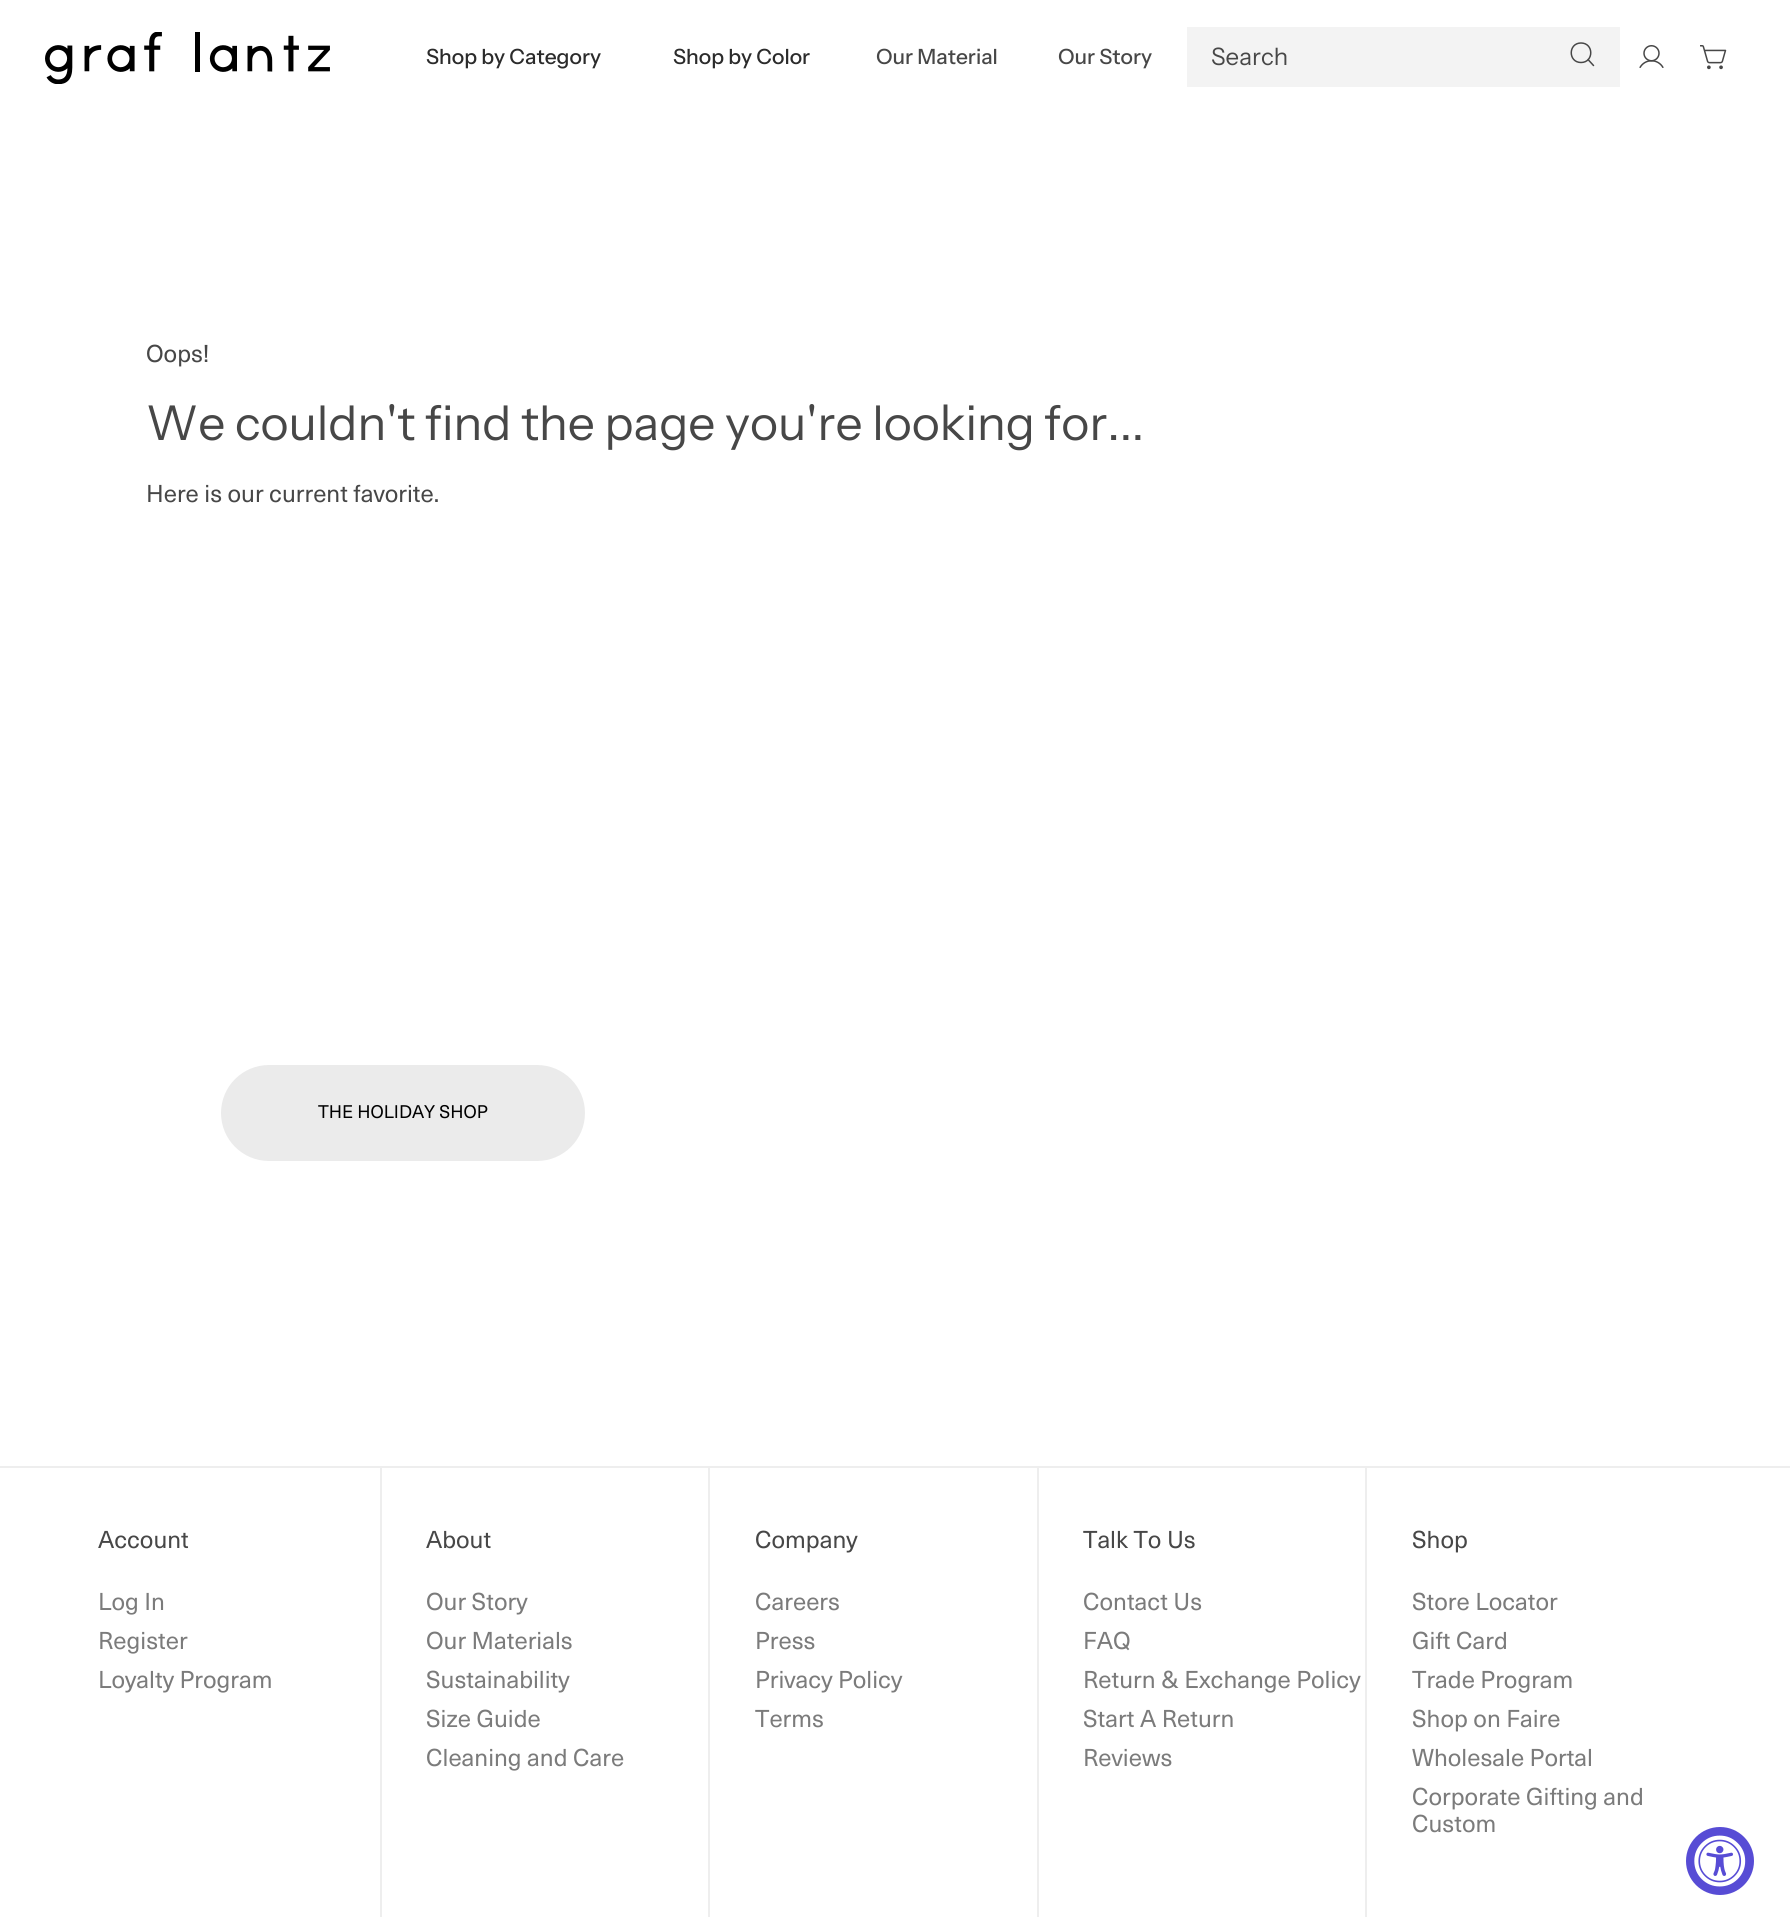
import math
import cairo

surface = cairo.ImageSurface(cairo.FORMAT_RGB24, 1790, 1917)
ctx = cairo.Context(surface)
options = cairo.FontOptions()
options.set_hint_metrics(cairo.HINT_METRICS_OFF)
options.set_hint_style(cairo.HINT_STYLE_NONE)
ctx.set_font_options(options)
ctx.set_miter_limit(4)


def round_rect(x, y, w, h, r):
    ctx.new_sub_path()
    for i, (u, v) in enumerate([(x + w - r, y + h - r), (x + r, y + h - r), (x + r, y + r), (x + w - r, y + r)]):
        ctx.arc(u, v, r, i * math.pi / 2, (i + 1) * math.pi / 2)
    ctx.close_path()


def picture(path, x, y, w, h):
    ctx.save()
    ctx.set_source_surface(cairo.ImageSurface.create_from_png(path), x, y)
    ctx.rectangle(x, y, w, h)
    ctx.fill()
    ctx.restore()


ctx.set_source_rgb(1, 1, 1)
ctx.paint()
picture("img1.png", 45, 32, 285, 52)
ctx.select_font_face("Instrument Sans Medium")
ctx.set_font_size(21)
ctx.set_source_rgb(0.169, 0.169, 0.169)
ctx.move_to(426, 64)
ctx.show_text("Shop by Category")
ctx.move_to(673, 64)
ctx.show_text("Shop by Color")
ctx.set_source_rgb(0.278, 0.278, 0.278)
ctx.move_to(876, 64)
ctx.show_text("Our Material")
ctx.move_to(1058, 64)
ctx.show_text("Our Story")
ctx.set_source_rgb(0.953, 0.953, 0.953)
ctx.rectangle(1187, 27, 433, 60)
ctx.fill()
ctx.select_font_face("Instrument Sans")
ctx.set_font_size(24)
ctx.set_source_rgb(0.278, 0.278, 0.278)
ctx.move_to(1211, 65)
ctx.show_text("Search")
ctx.new_path()
ctx.move_to(1581, 62.5)
ctx.curve_to(1594, 62.5, 1594, 43, 1581, 43)
ctx.curve_to(1568, 43, 1568, 62.5, 1581, 62.5)
ctx.close_path()
ctx.move_to(1588, 59.5)
ctx.line_to(1593.5, 65.5)
ctx.set_line_width(1.5)
ctx.set_line_cap(cairo.LINE_CAP_ROUND)
ctx.set_line_join(cairo.LINE_JOIN_ROUND)
ctx.stroke()
picture("img2.png", 1639, 45, 25, 23)
picture("img3.png", 1700, 45, 27, 25)
ctx.select_font_face("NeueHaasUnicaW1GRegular")
ctx.move_to(146, 362)
ctx.show_text("Oops!")
ctx.select_font_face("Instrument Sans")
ctx.set_font_size(48)
ctx.move_to(146, 440)
ctx.show_text("We couldn't find the page you're looking for...")
ctx.select_font_face("NeueHaasUnicaW1GRegular")
ctx.set_font_size(24)
ctx.move_to(146, 502)
ctx.show_text("Here is our current favorite.")
ctx.set_source_rgb(0.918, 0.918, 0.918)
round_rect(222, 1066, 362, 94, 47)
ctx.fill_preserve()
ctx.set_line_width(2)
ctx.set_line_cap(cairo.LINE_CAP_BUTT)
ctx.set_line_join(cairo.LINE_JOIN_MITER)
ctx.stroke()
ctx.set_font_size(18)
ctx.set_source_rgb(0, 0, 0)
ctx.move_to(318, 1118)
ctx.show_text("THE HOLIDAY SHOP")
ctx.set_source_rgb(0.933, 0.933, 0.933)
ctx.rectangle(0, 1466, 1790, 2)
ctx.fill()
ctx.rectangle(380, 1467, 2, 450)
ctx.fill()
ctx.set_font_size(24)
ctx.set_source_rgb(0.278, 0.278, 0.278)
ctx.move_to(98, 1548)
ctx.show_text("Account")
ctx.set_source_rgb(0.482, 0.482, 0.482)
ctx.move_to(98, 1610)
ctx.show_text("Log In")
ctx.move_to(98, 1649)
ctx.show_text("Register")
ctx.move_to(98, 1688)
ctx.show_text("Loyalty Program")
ctx.set_source_rgb(0.933, 0.933, 0.933)
ctx.rectangle(708, 1467, 2, 450)
ctx.fill()
ctx.set_source_rgb(0.278, 0.278, 0.278)
ctx.move_to(426, 1548)
ctx.show_text("About")
ctx.set_source_rgb(0.482, 0.482, 0.482)
ctx.move_to(426, 1610)
ctx.show_text("Our Story")
ctx.move_to(426, 1649)
ctx.show_text("Our Materials")
ctx.move_to(426, 1688)
ctx.show_text("Sustainability")
ctx.move_to(426, 1727)
ctx.show_text("Size Guide")
ctx.move_to(426, 1766)
ctx.show_text("Cleaning and Care")
ctx.set_source_rgb(0.933, 0.933, 0.933)
ctx.rectangle(1037, 1467, 2, 450)
ctx.fill()
ctx.set_source_rgb(0.278, 0.278, 0.278)
ctx.move_to(755, 1548)
ctx.show_text("Company")
ctx.set_source_rgb(0.482, 0.482, 0.482)
ctx.move_to(755, 1610)
ctx.show_text("Careers")
ctx.move_to(755, 1649)
ctx.show_text("Press")
ctx.move_to(755, 1688)
ctx.show_text("Privacy Policy")
ctx.move_to(755, 1727)
ctx.show_text("Terms")
ctx.set_source_rgb(0.933, 0.933, 0.933)
ctx.rectangle(1365, 1467, 2, 450)
ctx.fill()
ctx.set_source_rgb(0.278, 0.278, 0.278)
ctx.move_to(1083, 1548)
ctx.show_text("Talk To Us")
ctx.set_source_rgb(0.482, 0.482, 0.482)
ctx.move_to(1083, 1610)
ctx.show_text("Contact Us")
ctx.move_to(1083, 1649)
ctx.show_text("FAQ")
ctx.move_to(1083, 1688)
ctx.show_text("Return & Exchange Policy")
ctx.move_to(1083, 1727)
ctx.show_text("Start A Return")
ctx.move_to(1083, 1766)
ctx.show_text("Reviews")
ctx.set_source_rgb(0.278, 0.278, 0.278)
ctx.move_to(1412, 1548)
ctx.show_text("Shop")
ctx.set_source_rgb(0.482, 0.482, 0.482)
ctx.move_to(1412, 1610)
ctx.show_text("Store Locator")
ctx.move_to(1412, 1649)
ctx.show_text("Gift Card")
ctx.move_to(1412, 1688)
ctx.show_text("Trade Program")
ctx.move_to(1412, 1727)
ctx.show_text("Shop on Faire")
ctx.move_to(1412, 1766)
ctx.show_text("Wholesale Portal")
ctx.move_to(1412, 1805)
ctx.show_text("Corporate Gifting and")
ctx.move_to(1412, 1832)
ctx.show_text("Custom")
ctx.set_source_rgb(0.341, 0.298, 0.835)
ctx.new_path()
ctx.arc(1720, 1861, 34, 0, 2 * math.pi)
ctx.fill()
picture("img4.png", 1694, 1835, 52, 52)
surface.write_to_png("page.png")
